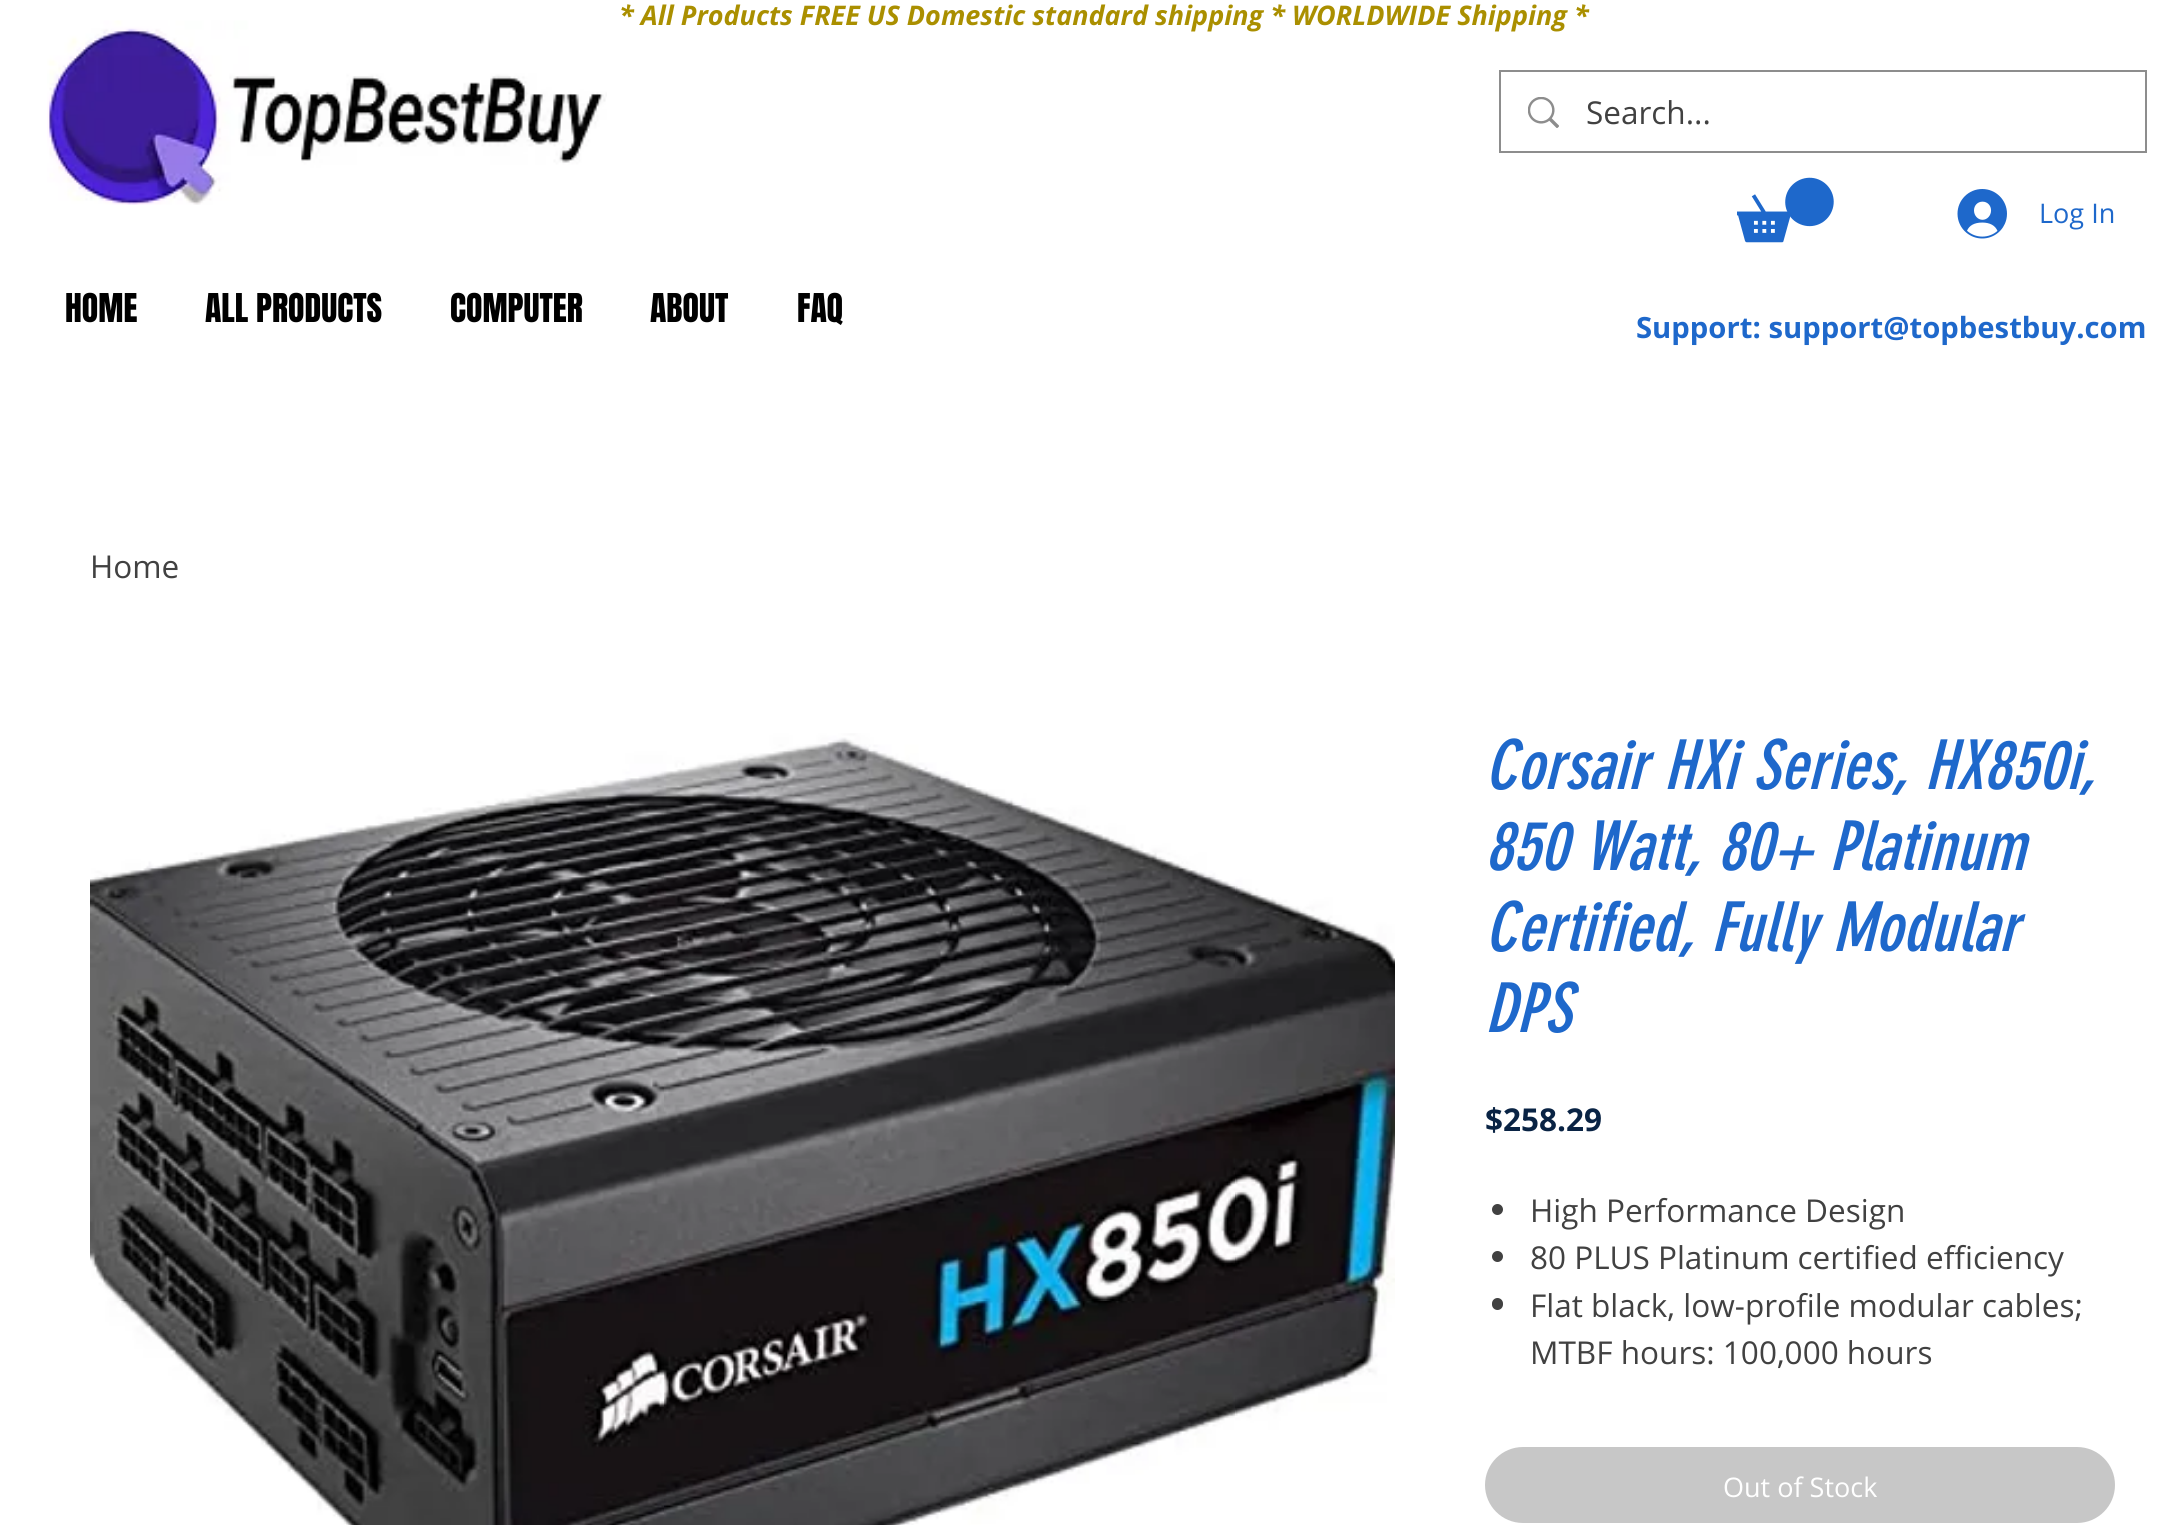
import math
import cairo

surface = cairo.ImageSurface(cairo.FORMAT_RGB24, 2167, 1525)
ctx = cairo.Context(surface)
options = cairo.FontOptions()
options.set_hint_metrics(cairo.HINT_METRICS_OFF)
options.set_hint_style(cairo.HINT_STYLE_NONE)
ctx.set_font_options(options)
ctx.set_miter_limit(4)


def round_rect(x, y, w, h, r):
    ctx.new_sub_path()
    for i, (u, v) in enumerate([(x + w - r, y + h - r), (x + r, y + h - r), (x + r, y + r), (x + w - r, y + r)]):
        ctx.arc(u, v, r, i * math.pi / 2, (i + 1) * math.pi / 2)
    ctx.close_path()


def picture(path, x, y, w, h):
    ctx.save()
    ctx.set_source_surface(cairo.ImageSurface.create_from_png(path), x, y)
    ctx.rectangle(x, y, w, h)
    ctx.fill()
    ctx.restore()


ctx.set_source_rgb(1, 1, 1)
ctx.paint()
picture("img1.png", 47, 20, 560, 185)
ctx.select_font_face("Open Sans", cairo.FONT_SLANT_ITALIC, cairo.FONT_WEIGHT_BOLD)
ctx.set_font_size(27)
ctx.set_source_rgb(0.667, 0.561, 0)
ctx.move_to(619, 25)
ctx.show_text("* All Products FREE US Domestic standard shipping * WORLDWIDE Shipping *")
ctx.rectangle(1500, 71, 646, 81)
ctx.set_source_rgb(0.553, 0.553, 0.553)
ctx.stroke()
picture("img2.png", 1528, 97, 31, 31)
ctx.select_font_face("Open Sans")
ctx.set_font_size(31.5)
ctx.set_source_rgb(0.255, 0.255, 0.255)
ctx.move_to(1586, 124)
ctx.show_text("Search...")
picture("img3.png", 1737, 177, 97, 66)
picture("img4.png", 1957, 189, 50, 50)
ctx.set_font_size(27)
ctx.set_source_rgb(0.118, 0.408, 0.796)
ctx.move_to(2039, 223)
ctx.show_text("Log In")
ctx.select_font_face("Anton")
ctx.set_font_size(33.75)
ctx.set_source_rgb(0, 0, 0)
ctx.move_to(65, 322)
ctx.show_text("HOME")
ctx.move_to(205, 322)
ctx.show_text("ALL PRODUCTS")
ctx.move_to(450, 322)
ctx.show_text("COMPUTER")
ctx.move_to(650, 322)
ctx.show_text("ABOUT")
ctx.move_to(797, 322)
ctx.show_text("FAQ")
ctx.select_font_face("Open Sans", cairo.FONT_SLANT_NORMAL, cairo.FONT_WEIGHT_BOLD)
ctx.set_font_size(29.25)
ctx.set_source_rgb(0.118, 0.408, 0.796)
ctx.move_to(1636, 338)
ctx.show_text("Support: support@topbestbuy.com")
ctx.select_font_face("Open Sans")
ctx.set_font_size(31.5)
ctx.set_source_rgb(0.255, 0.255, 0.255)
ctx.move_to(90, 578)
ctx.show_text("Home")
picture("img5.png", 90, 733, 1305, 792)
ctx.select_font_face("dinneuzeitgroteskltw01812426", cairo.FONT_SLANT_ITALIC)
ctx.set_font_size(67.5)
ctx.set_source_rgb(0.118, 0.408, 0.796)
ctx.move_to(1485, 789)
ctx.show_text("Corsair HXi Series, HX850i,")
ctx.move_to(1485, 870)
ctx.show_text("850 Watt, 80+ Platinum")
ctx.move_to(1485, 951)
ctx.show_text("Certified, Fully Modular")
ctx.move_to(1485, 1032)
ctx.show_text("DPS")
ctx.select_font_face("Open Sans", cairo.FONT_SLANT_NORMAL, cairo.FONT_WEIGHT_BOLD)
ctx.set_font_size(31.5)
ctx.set_source_rgb(0.039, 0.137, 0.267)
ctx.move_to(1485, 1131)
ctx.show_text("$258.29")
ctx.set_source_rgb(0.255, 0.255, 0.255)
ctx.new_path()
ctx.arc(1497.5, 1209.5, 5.5, 0, 2 * math.pi)
ctx.fill()
ctx.select_font_face("Open Sans")
ctx.move_to(1530, 1222)
ctx.show_text("High Performance Design")
ctx.new_path()
ctx.arc(1497.5, 1256.5, 5.5, 0, 2 * math.pi)
ctx.fill()
ctx.move_to(1530, 1269)
ctx.show_text("80 PLUS Platinum certified efficiency")
round_rect(1492, 1298, 11, 12, 5.5)
ctx.fill()
ctx.move_to(1530, 1317)
ctx.show_text("Flat black, low-profile modular cables;")
ctx.move_to(1530, 1364)
ctx.show_text("MTBF hours: 100,000 hours")
ctx.set_source_rgb(0.78, 0.78, 0.78)
round_rect(1485, 1447, 630, 76, 38)
ctx.fill()
ctx.set_font_size(27)
ctx.set_source_rgb(1, 1, 1)
ctx.move_to(1723, 1497)
ctx.show_text("Out of Stock")
surface.write_to_png("page.png")
